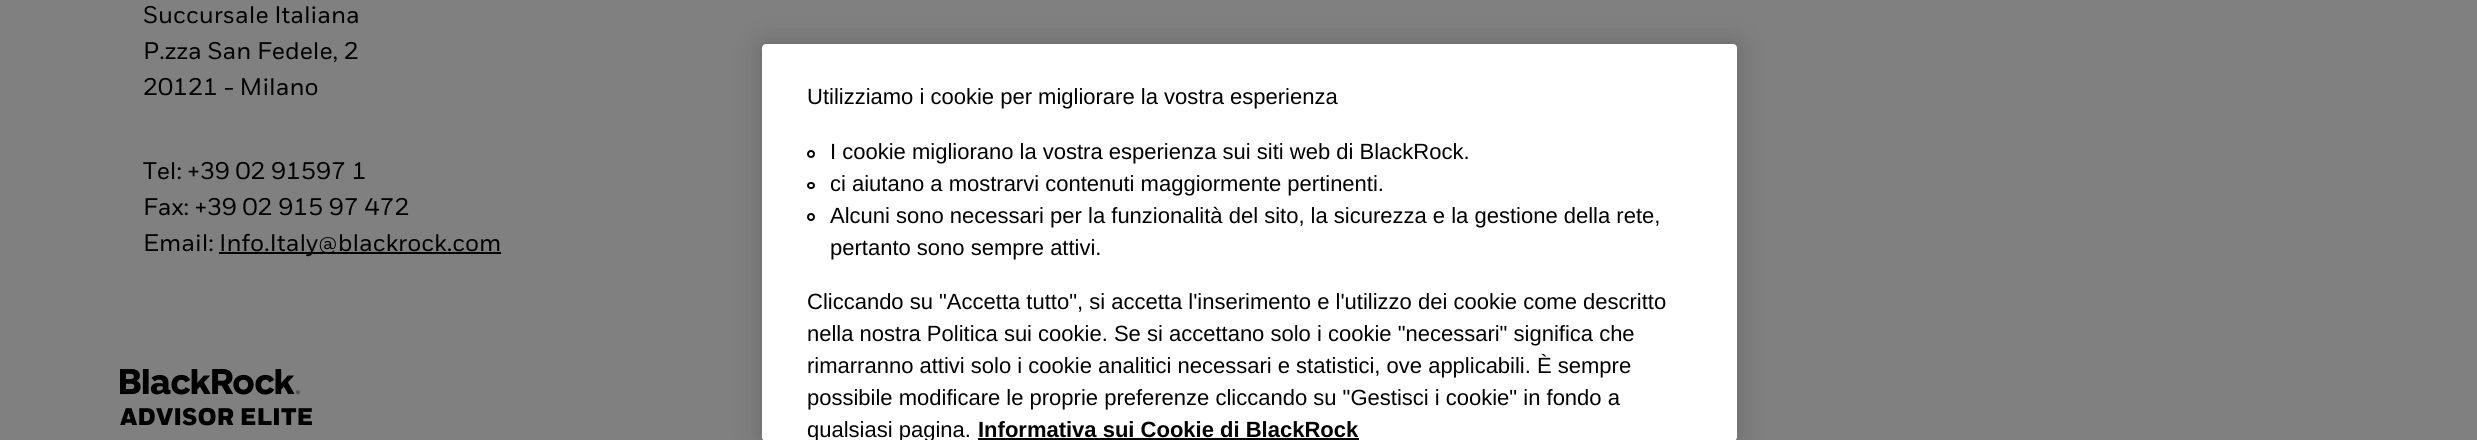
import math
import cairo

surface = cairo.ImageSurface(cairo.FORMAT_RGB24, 2477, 440)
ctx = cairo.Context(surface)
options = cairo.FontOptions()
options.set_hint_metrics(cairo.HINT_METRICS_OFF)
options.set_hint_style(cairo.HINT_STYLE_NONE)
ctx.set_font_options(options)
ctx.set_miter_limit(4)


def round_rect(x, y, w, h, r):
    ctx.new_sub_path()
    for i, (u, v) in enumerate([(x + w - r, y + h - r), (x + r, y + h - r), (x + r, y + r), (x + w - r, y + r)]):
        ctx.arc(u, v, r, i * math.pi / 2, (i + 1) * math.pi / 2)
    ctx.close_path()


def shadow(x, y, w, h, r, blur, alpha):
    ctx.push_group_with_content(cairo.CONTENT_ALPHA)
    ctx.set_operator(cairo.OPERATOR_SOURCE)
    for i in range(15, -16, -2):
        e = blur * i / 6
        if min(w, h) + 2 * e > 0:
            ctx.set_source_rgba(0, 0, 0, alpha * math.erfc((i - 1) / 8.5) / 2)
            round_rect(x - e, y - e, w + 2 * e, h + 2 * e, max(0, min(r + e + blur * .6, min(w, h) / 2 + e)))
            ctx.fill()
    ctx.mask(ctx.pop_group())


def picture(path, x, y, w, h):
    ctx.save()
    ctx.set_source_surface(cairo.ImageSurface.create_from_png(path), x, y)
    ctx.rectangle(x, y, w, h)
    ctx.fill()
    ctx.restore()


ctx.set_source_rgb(0.502, 0.502, 0.502)
ctx.paint()
ctx.select_font_face("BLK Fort")
ctx.set_font_size(24)
ctx.set_source_rgb(0, 0, 0)
ctx.move_to(143, 23)
ctx.show_text("Succursale Italiana")
ctx.move_to(143, 59)
ctx.show_text("P.zza San Fedele, 2")
ctx.move_to(143, 95)
ctx.show_text("20121 - Milano")
ctx.move_to(143, 179)
ctx.show_text("Tel: +39 02 91597 1")
ctx.move_to(143, 215)
ctx.show_text("Fax: +39 02 915 97 472")
ctx.move_to(143, 251)
ctx.show_text("Email:")
ctx.rectangle(219, 252, 282, 2)
ctx.fill()
ctx.move_to(219, 251)
ctx.show_text("Info.Italy@blackrock.com")
picture("img1.png", 120, 369, 180, 26)
ctx.select_font_face("BLK Fort ExtraBold")
ctx.move_to(120, 425)
ctx.show_text("ADVISOR ELITE")
ctx.set_source_rgb(0, 0, 0)
shadow(762, 44, 975, 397, 4, 13.5, 0.2)
ctx.set_source_rgb(1, 1, 1)
round_rect(762, 44, 975, 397, 4)
ctx.fill()
ctx.select_font_face("Liberation Sans")
ctx.set_font_size(22)
ctx.set_source_rgb(0, 0, 0)
ctx.move_to(807, 104)
ctx.show_text("Utilizziamo i cookie per migliorare la vostra esperienza")
ctx.new_path()
ctx.arc(811, 154, 3, 0, 2 * math.pi)
ctx.stroke()
ctx.move_to(830, 159)
ctx.show_text("I cookie migliorano la vostra esperienza sui siti web di BlackRock.")
round_rect(808, 183, 6, 5, 2.5)
ctx.stroke()
ctx.move_to(830, 191)
ctx.show_text("ci aiutano a mostrarvi contenuti maggiormente pertinenti.")
ctx.new_path()
ctx.arc(811, 217, 3, 0, 2 * math.pi)
ctx.stroke()
ctx.move_to(830, 223)
ctx.show_text("Alcuni sono necessari per la funzionalità del sito, la sicurezza e la gestione della rete,")
ctx.move_to(830, 255)
ctx.show_text("pertanto sono sempre attivi.")
ctx.move_to(807, 309)
ctx.show_text("Cliccando su \"Accetta tutto\", si accetta l'inserimento e l'utilizzo dei cookie come descritto")
ctx.move_to(807, 341)
ctx.show_text("nella nostra Politica sui cookie. Se si accettano solo i cookie \"necessari\" significa che")
ctx.move_to(807, 373)
ctx.show_text("rimarranno attivi solo i cookie analitici necessari e statistici, ove applicabili. È sempre")
ctx.move_to(807, 405)
ctx.show_text("possibile modificare le proprie preferenze cliccando su \"Gestisci i cookie\" in fondo a")
ctx.move_to(807, 437)
ctx.show_text("qualsiasi pagina.")
ctx.select_font_face("Liberation Sans", cairo.FONT_SLANT_NORMAL, cairo.FONT_WEIGHT_BOLD)
ctx.move_to(978, 437)
ctx.show_text("Informativa sui Cookie di BlackRock")
ctx.rectangle(978, 438, 381, 2)
ctx.fill()
surface.write_to_png("page.png")
